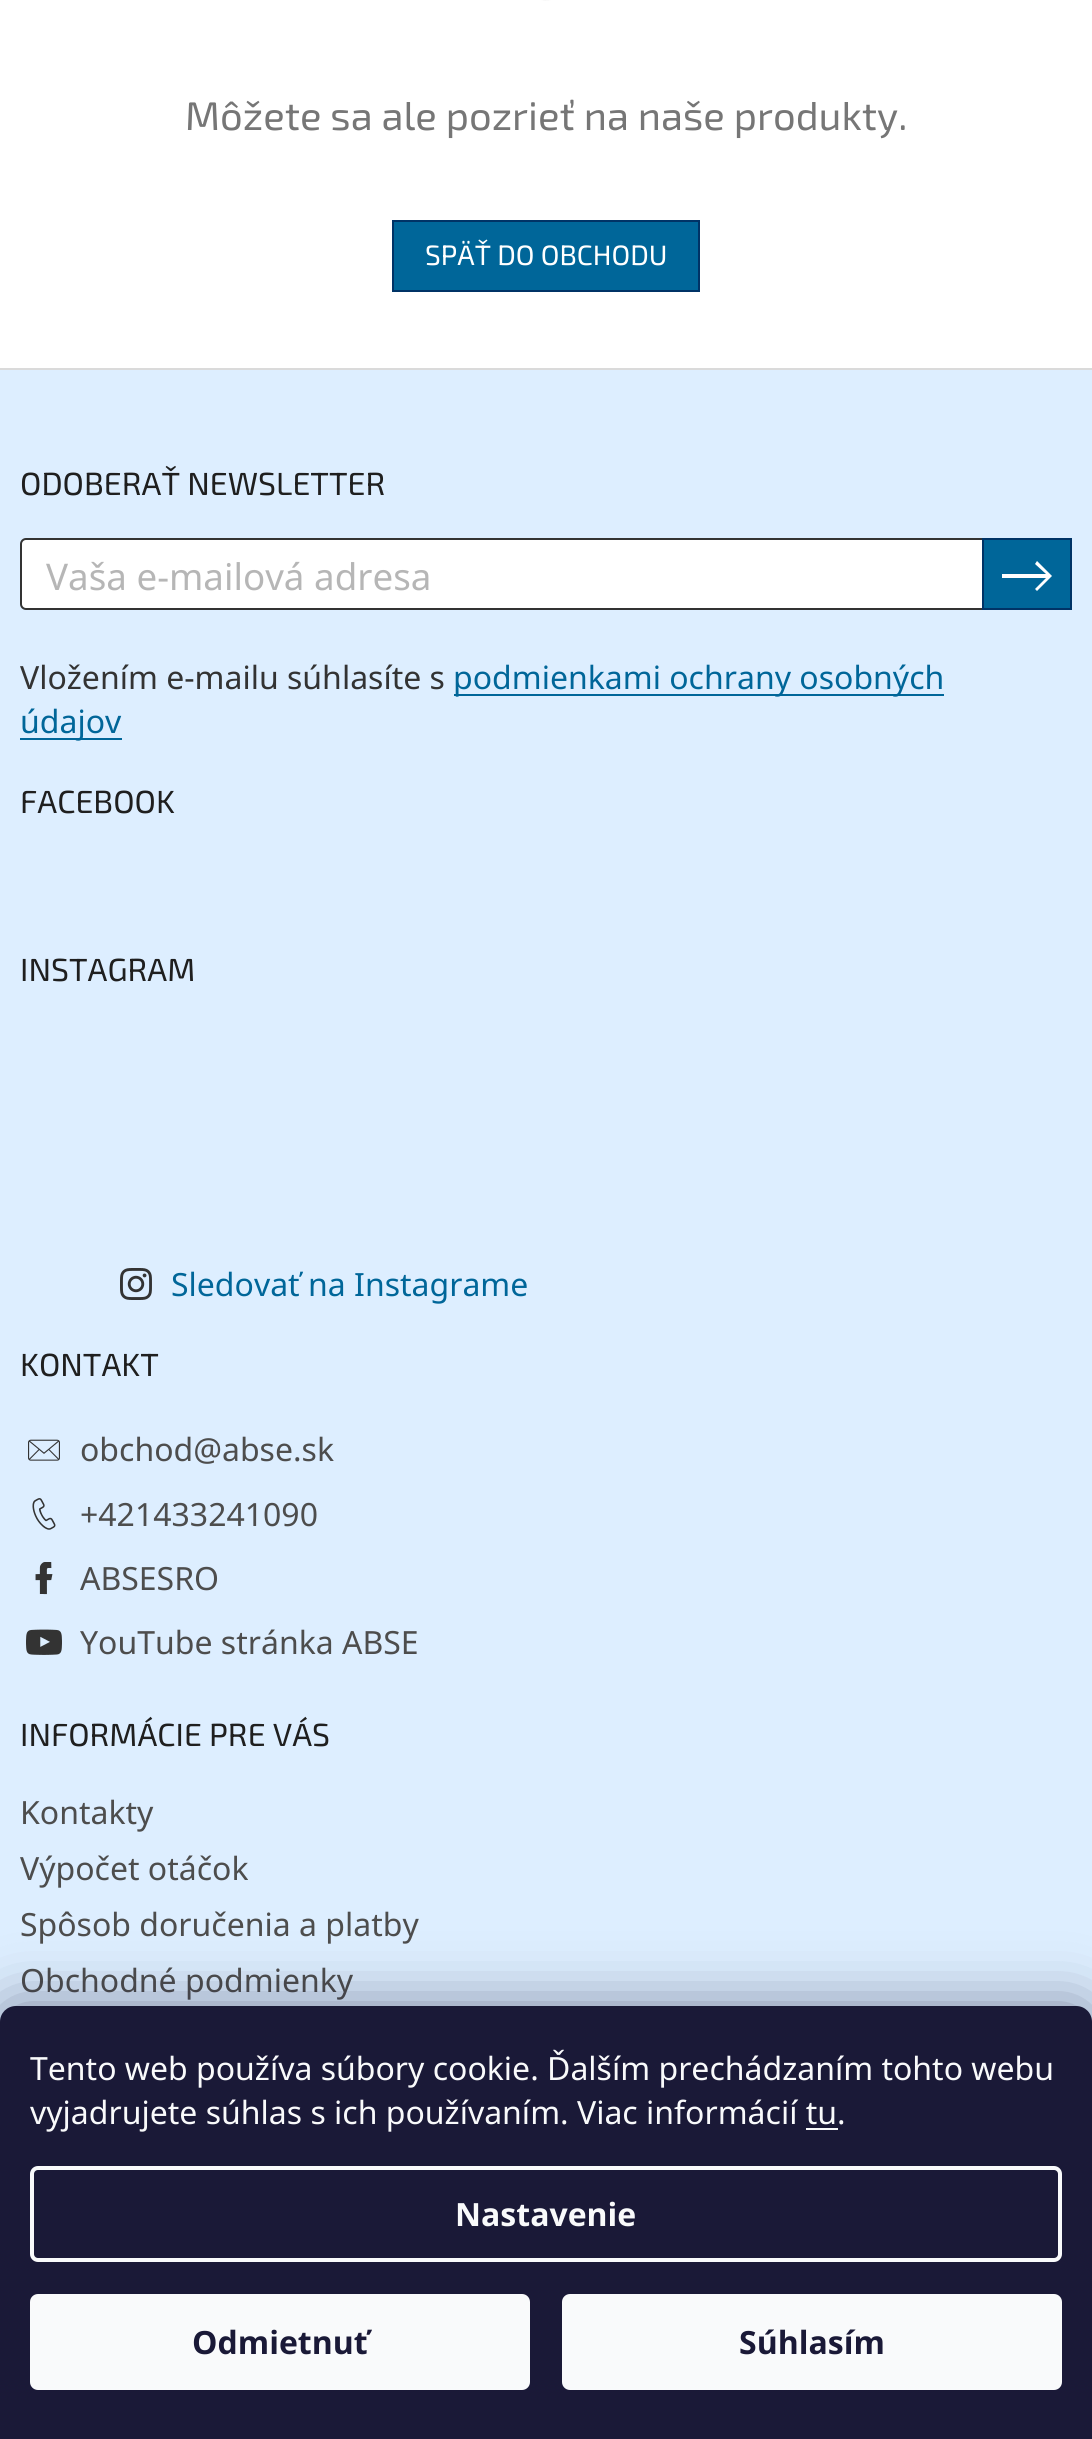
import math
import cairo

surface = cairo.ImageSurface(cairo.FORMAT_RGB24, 1092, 2439)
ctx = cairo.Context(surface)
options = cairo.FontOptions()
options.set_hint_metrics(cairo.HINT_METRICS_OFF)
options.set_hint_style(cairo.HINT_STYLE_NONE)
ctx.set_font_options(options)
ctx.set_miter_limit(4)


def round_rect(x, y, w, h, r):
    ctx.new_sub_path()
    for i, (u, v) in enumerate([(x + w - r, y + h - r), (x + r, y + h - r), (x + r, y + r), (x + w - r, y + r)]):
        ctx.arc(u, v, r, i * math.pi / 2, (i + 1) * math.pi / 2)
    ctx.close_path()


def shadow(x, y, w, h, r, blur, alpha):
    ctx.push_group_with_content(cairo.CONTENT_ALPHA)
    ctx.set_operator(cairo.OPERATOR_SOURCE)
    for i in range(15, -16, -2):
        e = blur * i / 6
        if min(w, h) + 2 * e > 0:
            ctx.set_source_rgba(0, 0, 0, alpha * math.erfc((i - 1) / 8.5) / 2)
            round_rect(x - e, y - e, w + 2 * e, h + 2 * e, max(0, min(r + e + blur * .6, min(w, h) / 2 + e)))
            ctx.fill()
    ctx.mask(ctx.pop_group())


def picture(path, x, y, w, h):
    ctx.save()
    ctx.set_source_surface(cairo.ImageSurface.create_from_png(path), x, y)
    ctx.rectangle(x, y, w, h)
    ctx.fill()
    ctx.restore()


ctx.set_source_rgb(1, 1, 1)
ctx.paint()
ctx.set_source_rgb(0.855, 0.855, 0.855)
ctx.new_path()
ctx.move_to(597, -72)
ctx.curve_to(597, -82, 594, -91, 589, -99)
ctx.line_to(518, -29)
ctx.curve_to(552, -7, 597, -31, 597, -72)
ctx.close_path()
ctx.move_to(503, -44)
ctx.line_to(574, -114)
ctx.curve_to(566, -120, 557, -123, 548, -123)
ctx.curve_to(506, -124, 481, -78, 503, -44)
ctx.close_path()
ctx.move_to(618, -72)
ctx.curve_to(618, -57, 614, -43, 606, -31)
ctx.curve_to(599, -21, 589, -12, 577, -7)
ctx.curve_to(529, 16, 474, -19, 474, -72)
ctx.curve_to(474, -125, 530, -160, 577, -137)
ctx.curve_to(589, -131, 599, -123, 606, -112)
ctx.curve_to(614, -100, 618, -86, 618, -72)
ctx.close_path()
ctx.fill()
ctx.select_font_face("Exo 2")
ctx.set_font_size(40)
ctx.set_source_rgb(0.463, 0.463, 0.463)
ctx.move_to(185, 130)
ctx.show_text("Môžete sa ale pozrieť na naše produkty.")
ctx.set_source_rgb(0, 0.4, 0.6)
ctx.rectangle(393, 221, 306, 70)
ctx.fill_preserve()
ctx.set_source_rgb(0, 0.2, 0.4)
ctx.stroke()
ctx.set_font_size(28)
ctx.set_source_rgb(1, 1, 1)
ctx.move_to(425, 265)
ctx.show_text("SPÄŤ DO OBCHODU")
ctx.set_source_rgb(0.867, 0.933, 1)
ctx.rectangle(0, 370, 1092, 1652)
ctx.fill()
ctx.set_source_rgb(0.855, 0.855, 0.855)
ctx.rectangle(0, 368, 1092, 2)
ctx.fill()
ctx.set_font_size(32)
ctx.set_source_rgb(0.122, 0.122, 0.122)
ctx.move_to(20, 495)
ctx.show_text("ODOBERAŤ NEWSLETTER")
ctx.set_source_rgb(1, 1, 1)
round_rect(21, 539, 1050, 70, 5)
ctx.fill_preserve()
ctx.set_source_rgb(0.2, 0.2, 0.2)
ctx.stroke()
ctx.select_font_face("Noto Sans")
ctx.set_font_size(36.75)
ctx.set_source_rgb(0.714, 0.714, 0.714)
ctx.move_to(46, 590)
ctx.show_text("Vaša e-mailová adresa")
ctx.set_source_rgb(0, 0.4, 0.6)
ctx.rectangle(983, 539, 88, 70)
ctx.fill_preserve()
ctx.set_source_rgb(0, 0.2, 0.4)
ctx.stroke()
ctx.set_source_rgb(1, 1, 1)
ctx.new_path()
ctx.move_to(1037, 561)
ctx.line_to(1052, 576)
ctx.line_to(1037, 591)
ctx.line_to(1035, 589)
ctx.line_to(1046, 578)
ctx.line_to(1002, 578)
ctx.line_to(1002, 574)
ctx.line_to(1046, 574)
ctx.line_to(1035, 564)
ctx.close_path()
ctx.fill()
ctx.set_font_size(32)
ctx.set_source_rgb(0.2, 0.2, 0.2)
ctx.move_to(20, 689)
ctx.show_text("Vložením e-mailu súhlasíte s")
ctx.set_source_rgb(0, 0.4, 0.6)
ctx.rectangle(454, 694, 490, 2)
ctx.fill()
ctx.move_to(453, 689)
ctx.show_text("podmienkami ochrany osobných")
ctx.rectangle(20, 738, 102, 2)
ctx.fill()
ctx.move_to(20, 733)
ctx.show_text("údajov")
ctx.select_font_face("Exo 2")
ctx.set_source_rgb(0.122, 0.122, 0.122)
ctx.move_to(20, 813)
ctx.show_text("FACEBOOK")
ctx.move_to(20, 981)
ctx.show_text("INSTAGRAM")
picture("img1.png", 120, 1268, 32, 32)
ctx.select_font_face("Noto Sans")
ctx.set_source_rgb(0, 0.4, 0.6)
ctx.move_to(171, 1296)
ctx.show_text("Sledovať na Instagrame")
ctx.select_font_face("Exo 2")
ctx.set_source_rgb(0.122, 0.122, 0.122)
ctx.move_to(20, 1376)
ctx.show_text("KONTAKT")
picture("img2.png", 28, 1439, 32, 22)
ctx.select_font_face("Noto Sans")
ctx.set_source_rgb(0.302, 0.302, 0.302)
ctx.move_to(80, 1461)
ctx.show_text("obchod@abse.sk")
picture("img3.png", 32, 1498, 24, 32)
ctx.move_to(80, 1526)
ctx.show_text("+421433241090")
picture("img4.png", 35, 1562, 18, 33)
ctx.move_to(80, 1590)
ctx.show_text("ABSESRO")
picture("img5.png", 26, 1629, 36, 26)
ctx.move_to(80, 1654)
ctx.show_text("YouTube stránka ABSE")
ctx.select_font_face("Exo 2")
ctx.set_source_rgb(0.122, 0.122, 0.122)
ctx.move_to(20, 1746)
ctx.show_text("INFORMÁCIE PRE VÁS")
ctx.select_font_face("Noto Sans")
ctx.set_source_rgb(0.302, 0.302, 0.302)
ctx.move_to(20, 1824)
ctx.show_text("Kontakty")
ctx.move_to(20, 1880)
ctx.show_text("Výpočet otáčok")
ctx.move_to(20, 1936)
ctx.show_text("Spôsob doručenia a platby")
ctx.move_to(20, 1992)
ctx.show_text("Obchodné podmienky")
ctx.set_source_rgb(0.106, 0.098, 0.224)
shadow(0, 2006, 1092, 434, 16, 30, 0.5)
ctx.set_source_rgb(0.102, 0.098, 0.216)
ctx.new_path()
ctx.move_to(16, 2006)
ctx.line_to(1076, 2006)
ctx.curve_to(1085, 2006, 1092, 2013, 1092, 2022)
ctx.line_to(1092, 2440)
ctx.line_to(0, 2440)
ctx.line_to(0, 2022)
ctx.curve_to(0, 2013, 7, 2006, 16, 2006)
ctx.close_path()
ctx.fill()
ctx.set_source_rgb(0.973, 0.98, 0.984)
ctx.move_to(30, 2080)
ctx.show_text("Tento web používa súbory cookie. Ďalším prechádzaním tohto webu")
ctx.move_to(30, 2124)
ctx.show_text("vyjadrujete súhlas s ich používaním. Viac informácií tu.")
ctx.rectangle(806, 2128, 32, 2)
ctx.fill()
round_rect(32, 2168, 1028, 92, 6)
ctx.set_line_width(4)
ctx.stroke()
ctx.select_font_face("Noto Sans", cairo.FONT_SLANT_NORMAL, cairo.FONT_WEIGHT_BOLD)
ctx.move_to(455, 2226)
ctx.show_text("Nastavenie")
round_rect(30, 2294, 500, 96, 8)
ctx.fill()
ctx.set_source_rgb(0.102, 0.098, 0.216)
ctx.move_to(192, 2354)
ctx.show_text("Odmietnuť")
ctx.set_source_rgb(0.973, 0.98, 0.984)
round_rect(562, 2294, 500, 96, 8)
ctx.fill()
ctx.set_source_rgb(0.102, 0.098, 0.216)
ctx.move_to(739, 2354)
ctx.show_text("Súhlasím")
surface.write_to_png("page.png")
